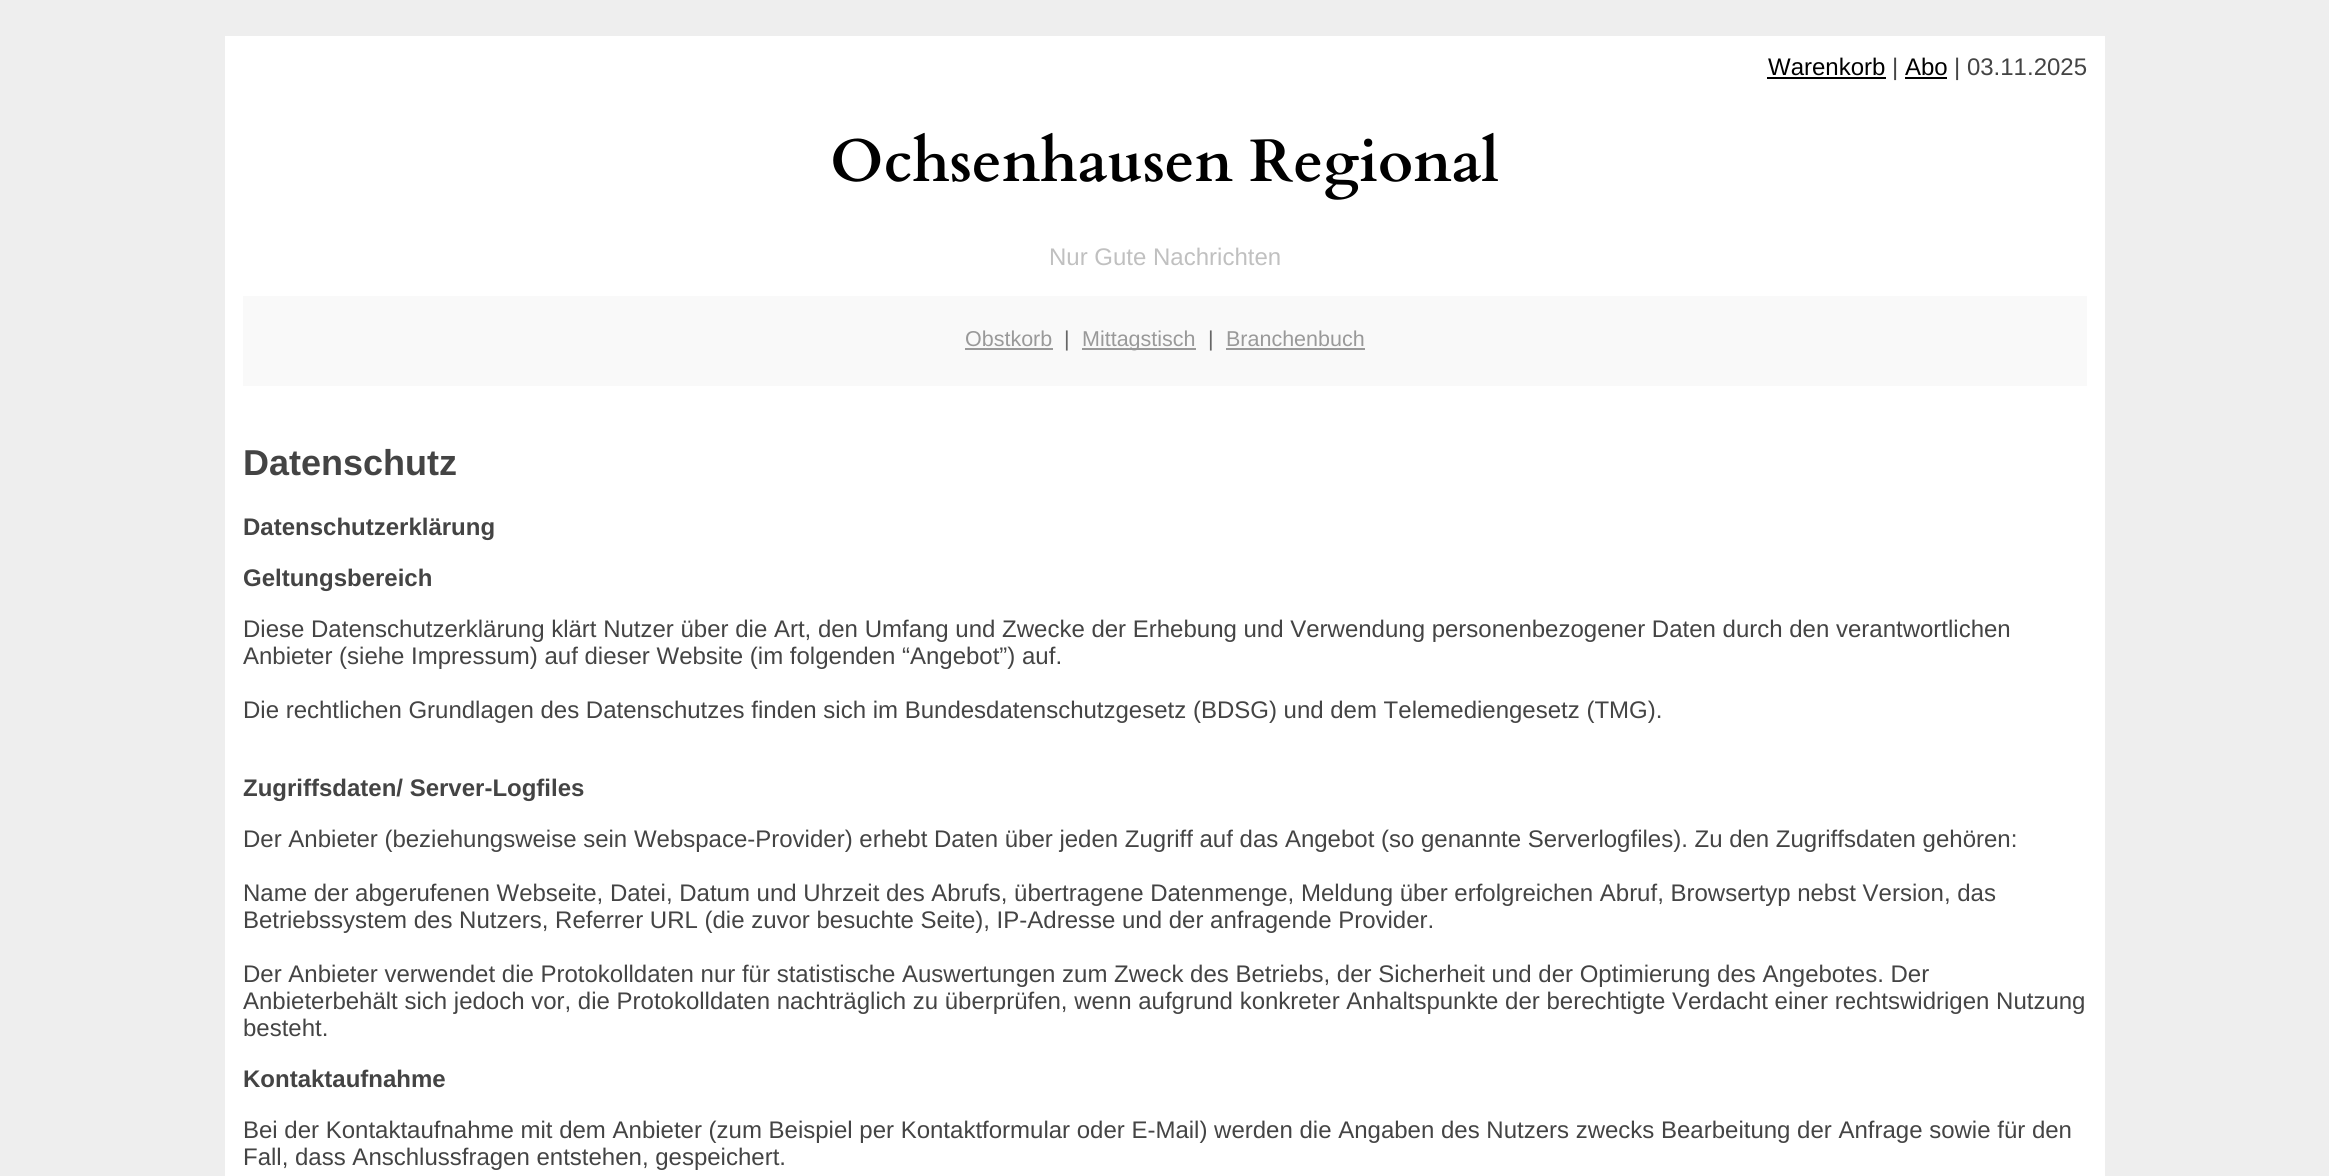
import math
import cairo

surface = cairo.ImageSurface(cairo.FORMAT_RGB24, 2329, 1176)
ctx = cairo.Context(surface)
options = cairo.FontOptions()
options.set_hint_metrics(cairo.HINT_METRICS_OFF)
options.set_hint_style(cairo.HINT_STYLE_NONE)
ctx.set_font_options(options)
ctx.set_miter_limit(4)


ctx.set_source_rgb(0.933, 0.933, 0.933)
ctx.paint()
ctx.set_source_rgb(1, 1, 1)
ctx.rectangle(225, 36, 1880, 1140)
ctx.fill()
ctx.select_font_face("Liberation Sans")
ctx.set_font_size(24)
ctx.set_source_rgb(0, 0, 0)
ctx.move_to(1768, 75)
ctx.show_text("Warenkorb")
ctx.rectangle(1767, 77, 119, 2)
ctx.fill()
ctx.set_source_rgb(0.267, 0.267, 0.267)
ctx.move_to(1892, 75)
ctx.show_text("|")
ctx.set_source_rgb(0, 0, 0)
ctx.move_to(1905, 75)
ctx.show_text("Abo")
ctx.rectangle(1905, 77, 42, 2)
ctx.fill()
ctx.set_source_rgb(0.267, 0.267, 0.267)
ctx.move_to(1954, 75)
ctx.show_text("| 03.11.2025")
ctx.select_font_face("Cardo", cairo.FONT_SLANT_NORMAL, cairo.FONT_WEIGHT_BOLD)
ctx.set_font_size(60)
ctx.set_source_rgb(0, 0, 0)
ctx.move_to(830, 181)
ctx.show_text("Ochsenhausen Regional")
ctx.select_font_face("Liberation Sans")
ctx.set_font_size(24)
ctx.set_source_rgb(0.753, 0.753, 0.753)
ctx.move_to(1049, 265)
ctx.show_text("Nur Gute Nachrichten")
ctx.set_source_rgb(0.976, 0.976, 0.976)
ctx.rectangle(243, 296, 1844, 90)
ctx.fill()
ctx.set_font_size(21.5)
ctx.set_source_rgb(0.6, 0.6, 0.6)
ctx.move_to(965, 346)
ctx.show_text("Obstkorb")
ctx.rectangle(965, 348, 88, 2)
ctx.fill()
ctx.set_source_rgb(0.4, 0.4, 0.4)
ctx.move_to(1064, 346)
ctx.show_text("|")
ctx.set_source_rgb(0.6, 0.6, 0.6)
ctx.rectangle(1082, 348, 114, 2)
ctx.fill()
ctx.move_to(1082, 346)
ctx.show_text("Mittagstisch")
ctx.set_source_rgb(0.4, 0.4, 0.4)
ctx.move_to(1208, 346)
ctx.show_text("|")
ctx.set_source_rgb(0.6, 0.6, 0.6)
ctx.move_to(1226, 346)
ctx.show_text("Branchenbuch")
ctx.rectangle(1226, 348, 139, 2)
ctx.fill()
ctx.select_font_face("Liberation Sans", cairo.FONT_SLANT_NORMAL, cairo.FONT_WEIGHT_BOLD)
ctx.set_font_size(36)
ctx.set_source_rgb(0.267, 0.267, 0.267)
ctx.move_to(243, 475)
ctx.show_text("Datenschutz")
ctx.set_font_size(24)
ctx.move_to(243, 535)
ctx.show_text("Datenschutzerklärung")
ctx.move_to(243, 586)
ctx.show_text("Geltungsbereich")
ctx.select_font_face("Liberation Sans")
ctx.move_to(243, 637)
ctx.show_text("Diese Datenschutzerklärung klärt Nutzer über die Art, den Umfang und Zwecke der Erhebung und Verwendung personenbezogener Daten durch den verantwortlichen")
ctx.move_to(243, 664)
ctx.show_text("Anbieter (siehe Impressum) auf dieser Website (im folgenden “Angebot”) auf.")
ctx.move_to(243, 718)
ctx.show_text("Die rechtlichen Grundlagen des Datenschutzes finden sich im Bundesdatenschutzgesetz (BDSG) und dem Telemediengesetz (TMG).")
ctx.select_font_face("Liberation Sans", cairo.FONT_SLANT_NORMAL, cairo.FONT_WEIGHT_BOLD)
ctx.move_to(243, 796)
ctx.show_text("Zugriffsdaten/ Server-Logfiles")
ctx.select_font_face("Liberation Sans")
ctx.move_to(243, 847)
ctx.show_text("Der Anbieter (beziehungsweise sein Webspace-Provider) erhebt Daten über jeden Zugriff auf das Angebot (so genannte Serverlogfiles). Zu den Zugriffsdaten gehören:")
ctx.move_to(243, 901)
ctx.show_text("Name der abgerufenen Webseite, Datei, Datum und Uhrzeit des Abrufs, übertragene Datenmenge, Meldung über erfolgreichen Abruf, Browsertyp nebst Version, das")
ctx.move_to(243, 928)
ctx.show_text("Betriebssystem des Nutzers, Referrer URL (die zuvor besuchte Seite), IP-Adresse und der anfragende Provider.")
ctx.move_to(243, 982)
ctx.show_text("Der Anbieter verwendet die Protokolldaten nur für statistische Auswertungen zum Zweck des Betriebs, der Sicherheit und der Optimierung des Angebotes. Der")
ctx.move_to(243, 1009)
ctx.show_text("Anbieterbehält sich jedoch vor, die Protokolldaten nachträglich zu überprüfen, wenn aufgrund konkreter Anhaltspunkte der berechtigte Verdacht einer rechtswidrigen Nutzung")
ctx.move_to(243, 1036)
ctx.show_text("besteht.")
ctx.select_font_face("Liberation Sans", cairo.FONT_SLANT_NORMAL, cairo.FONT_WEIGHT_BOLD)
ctx.move_to(243, 1087)
ctx.show_text("Kontaktaufnahme")
ctx.select_font_face("Liberation Sans")
ctx.move_to(243, 1138)
ctx.show_text("Bei der Kontaktaufnahme mit dem Anbieter (zum Beispiel per Kontaktformular oder E-Mail) werden die Angaben des Nutzers zwecks Bearbeitung der Anfrage sowie für den")
ctx.move_to(243, 1165)
ctx.show_text("Fall, dass Anschlussfragen entstehen, gespeichert.")
surface.write_to_png("page.png")
